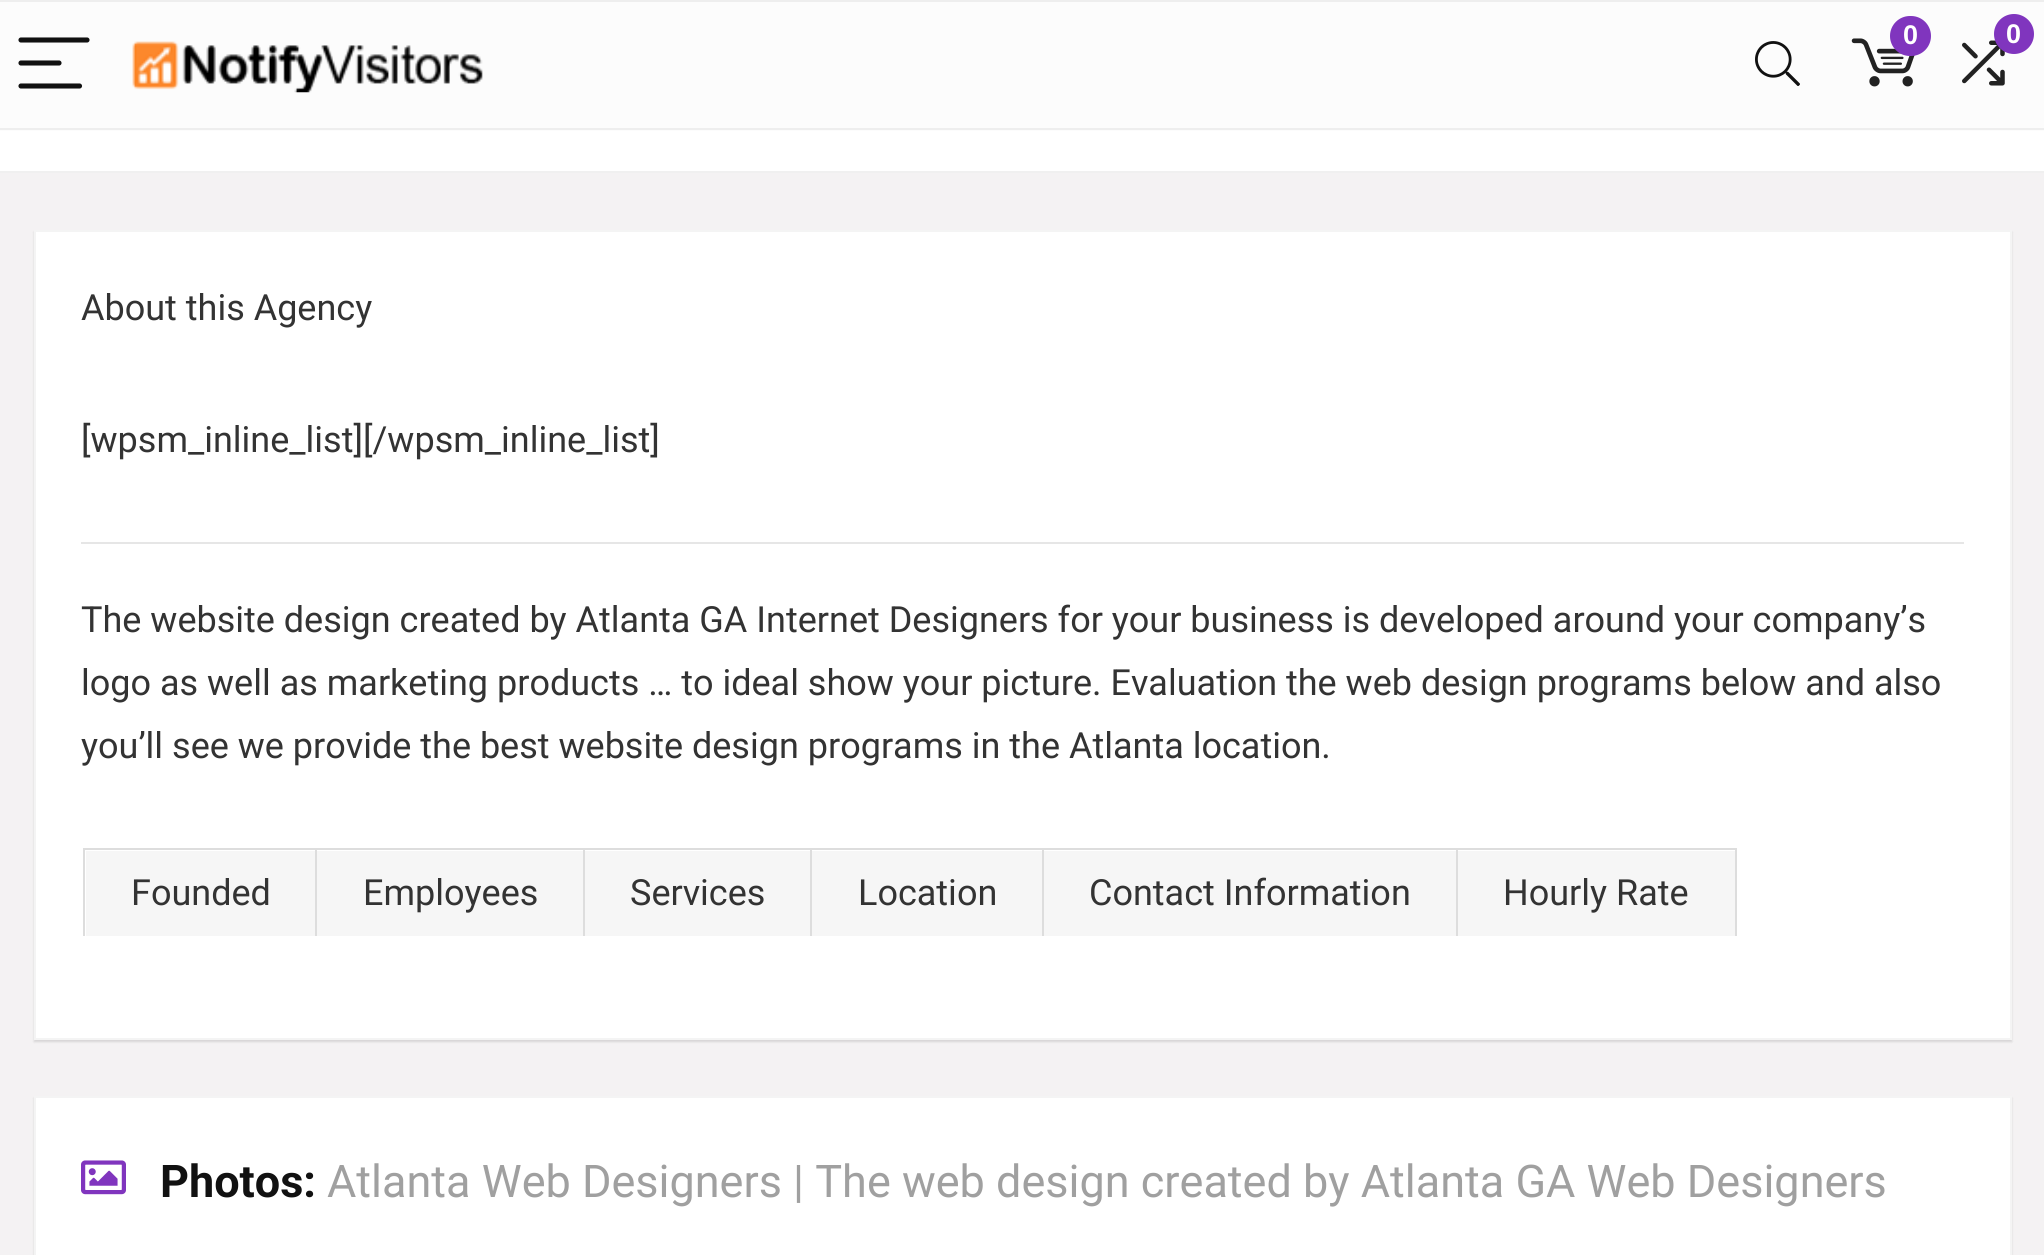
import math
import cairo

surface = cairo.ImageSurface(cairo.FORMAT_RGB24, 2044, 1255)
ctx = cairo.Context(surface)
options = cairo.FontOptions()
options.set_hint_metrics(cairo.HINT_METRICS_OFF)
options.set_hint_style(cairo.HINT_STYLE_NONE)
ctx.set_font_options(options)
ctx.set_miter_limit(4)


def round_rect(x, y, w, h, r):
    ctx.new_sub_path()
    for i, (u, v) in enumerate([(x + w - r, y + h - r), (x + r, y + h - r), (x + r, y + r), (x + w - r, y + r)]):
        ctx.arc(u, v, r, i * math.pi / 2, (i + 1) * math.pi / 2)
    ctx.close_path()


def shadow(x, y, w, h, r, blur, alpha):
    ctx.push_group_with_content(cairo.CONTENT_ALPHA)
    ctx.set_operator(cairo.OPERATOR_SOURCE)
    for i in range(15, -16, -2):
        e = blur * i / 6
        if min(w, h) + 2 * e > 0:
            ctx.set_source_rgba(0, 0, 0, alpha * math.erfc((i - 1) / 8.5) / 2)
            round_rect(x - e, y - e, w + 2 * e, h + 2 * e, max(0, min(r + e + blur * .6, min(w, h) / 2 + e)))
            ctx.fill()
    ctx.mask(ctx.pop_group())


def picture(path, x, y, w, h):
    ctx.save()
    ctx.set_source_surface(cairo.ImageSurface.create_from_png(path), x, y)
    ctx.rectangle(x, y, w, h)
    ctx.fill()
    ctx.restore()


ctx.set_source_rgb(0.957, 0.949, 0.953)
ctx.paint()
ctx.set_source_rgb(0.988, 0.988, 0.988)
ctx.rectangle(0, 2, 2044, 129)
ctx.fill()
ctx.set_source_rgb(0.933, 0.933, 0.933)
ctx.rectangle(0, 0, 2044, 2)
ctx.fill()
ctx.rectangle(0, 128, 2044, 2)
ctx.fill()
picture("img1.png", 1851, 38, 64, 49)
ctx.set_source_rgb(0.502, 0.208, 0.745)
round_rect(1890, 16, 41, 40, 20)
ctx.fill()
ctx.select_font_face("Liberation Sans", cairo.FONT_SLANT_NORMAL, cairo.FONT_WEIGHT_BOLD)
ctx.set_font_size(27)
ctx.set_source_rgb(1, 1, 1)
ctx.move_to(1903, 44)
ctx.show_text("0")
picture("img2.png", 1962, 40, 43, 46)
ctx.set_source_rgb(0.502, 0.208, 0.745)
ctx.arc(2014, 34, 20, 0, 2 * math.pi)
ctx.fill()
ctx.set_source_rgb(1, 1, 1)
ctx.move_to(2006, 43)
ctx.show_text("0")
picture("img3.png", 1755, 41, 45, 45)
ctx.new_path()
ctx.move_to(21, 40)
ctx.line_to(87, 40)
ctx.set_source_rgb(0.067, 0.067, 0.067)
ctx.set_line_width(5.1)
ctx.set_line_cap(cairo.LINE_CAP_ROUND)
ctx.stroke()
ctx.new_path()
ctx.move_to(21, 63)
ctx.line_to(59, 63)
ctx.stroke()
ctx.new_path()
ctx.move_to(21, 86)
ctx.line_to(79.5, 86)
ctx.stroke()
picture("img4.png", 132, 41, 351, 52)
ctx.set_source_rgb(1, 1, 1)
ctx.rectangle(0, 131, 2044, 40)
ctx.fill()
ctx.set_source_rgb(0.941, 0.941, 0.941)
ctx.rectangle(0, 171, 2044, 2)
ctx.fill()
ctx.set_source_rgb(0, 0, 0)
shadow(34, 232, 1978, 810, 0, 1, 0.12)
ctx.set_source_rgb(1, 1, 1)
ctx.rectangle(35, 231, 1976, 808)
ctx.fill_preserve()
ctx.set_source_rgb(0.957, 0.957, 0.957)
ctx.set_line_width(2)
ctx.set_line_cap(cairo.LINE_CAP_BUTT)
ctx.stroke()
ctx.select_font_face("Roboto")
ctx.set_font_size(36)
ctx.set_source_rgb(0.2, 0.2, 0.2)
ctx.move_to(81, 320)
ctx.show_text("About this Agency")
ctx.move_to(81, 452)
ctx.show_text("[wpsm_inline_list][/wpsm_inline_list]")
ctx.set_source_rgb(0.902, 0.902, 0.902)
ctx.rectangle(81, 542, 1883, 2)
ctx.fill()
ctx.set_source_rgb(0.2, 0.2, 0.2)
ctx.move_to(81, 632)
ctx.show_text("The website design created by Atlanta GA Internet Designers for your business is developed around your company’s")
ctx.move_to(81, 695)
ctx.show_text("logo as well as marketing products … to ideal show your picture. Evaluation the web design programs below and also")
ctx.move_to(81, 758)
ctx.show_text("you’ll see we provide the best website design programs in the Atlanta location.")
ctx.set_source_rgb(0.961, 0.961, 0.961)
ctx.rectangle(86, 851, 229, 85)
ctx.fill()
ctx.set_source_rgb(0.867, 0.867, 0.867)
ctx.rectangle(83, 848, 1654, 2)
ctx.fill()
ctx.rectangle(315, 848, 2, 88)
ctx.fill()
ctx.rectangle(83, 848, 2, 88)
ctx.fill()
ctx.set_source_rgb(0.2, 0.2, 0.2)
ctx.move_to(131, 905)
ctx.show_text("Founded")
ctx.set_source_rgb(0.961, 0.961, 0.961)
ctx.rectangle(317, 851, 266, 85)
ctx.fill()
ctx.set_source_rgb(0.867, 0.867, 0.867)
ctx.rectangle(583, 848, 2, 88)
ctx.fill()
ctx.set_source_rgb(0.2, 0.2, 0.2)
ctx.move_to(363, 905)
ctx.show_text("Employees")
ctx.set_source_rgb(0.961, 0.961, 0.961)
ctx.rectangle(585, 851, 225, 85)
ctx.fill()
ctx.set_source_rgb(0.867, 0.867, 0.867)
ctx.rectangle(810, 848, 2, 88)
ctx.fill()
ctx.set_source_rgb(0.2, 0.2, 0.2)
ctx.move_to(630, 905)
ctx.show_text("Services")
ctx.set_source_rgb(0.961, 0.961, 0.961)
ctx.rectangle(812, 851, 230, 85)
ctx.fill()
ctx.set_source_rgb(0.867, 0.867, 0.867)
ctx.rectangle(1042, 848, 2, 88)
ctx.fill()
ctx.set_source_rgb(0.2, 0.2, 0.2)
ctx.move_to(858, 905)
ctx.show_text("Location")
ctx.set_source_rgb(0.961, 0.961, 0.961)
ctx.rectangle(1044, 851, 412, 85)
ctx.fill()
ctx.set_source_rgb(0.867, 0.867, 0.867)
ctx.rectangle(1456, 848, 2, 88)
ctx.fill()
ctx.set_source_rgb(0.2, 0.2, 0.2)
ctx.move_to(1089, 905)
ctx.show_text("Contact Information")
ctx.set_source_rgb(0.961, 0.961, 0.961)
ctx.rectangle(1458, 851, 277, 85)
ctx.fill()
ctx.set_source_rgb(0.867, 0.867, 0.867)
ctx.rectangle(1735, 848, 2, 88)
ctx.fill()
ctx.set_source_rgb(0.2, 0.2, 0.2)
ctx.move_to(1503, 905)
ctx.show_text("Hourly Rate")
ctx.set_source_rgb(0, 0, 0)
shadow(34, 1098, 1978, 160, 0, 1, 0.12)
ctx.set_source_rgb(1, 1, 1)
ctx.rectangle(35, 1097, 1976, 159)
ctx.fill_preserve()
ctx.set_source_rgb(0.957, 0.957, 0.957)
ctx.stroke()
picture("img5.png", 81, 1160, 45, 35)
ctx.select_font_face("Roboto", cairo.FONT_SLANT_NORMAL, cairo.FONT_WEIGHT_BOLD)
ctx.set_font_size(45)
ctx.set_source_rgb(0.067, 0.067, 0.067)
ctx.move_to(160, 1197)
ctx.show_text("Photos:")
ctx.select_font_face("Roboto")
ctx.set_source_rgb(0.627, 0.627, 0.627)
ctx.move_to(327, 1197)
ctx.show_text("Atlanta Web Designers | The web design created by Atlanta GA Web Designers")
surface.write_to_png("page.png")
